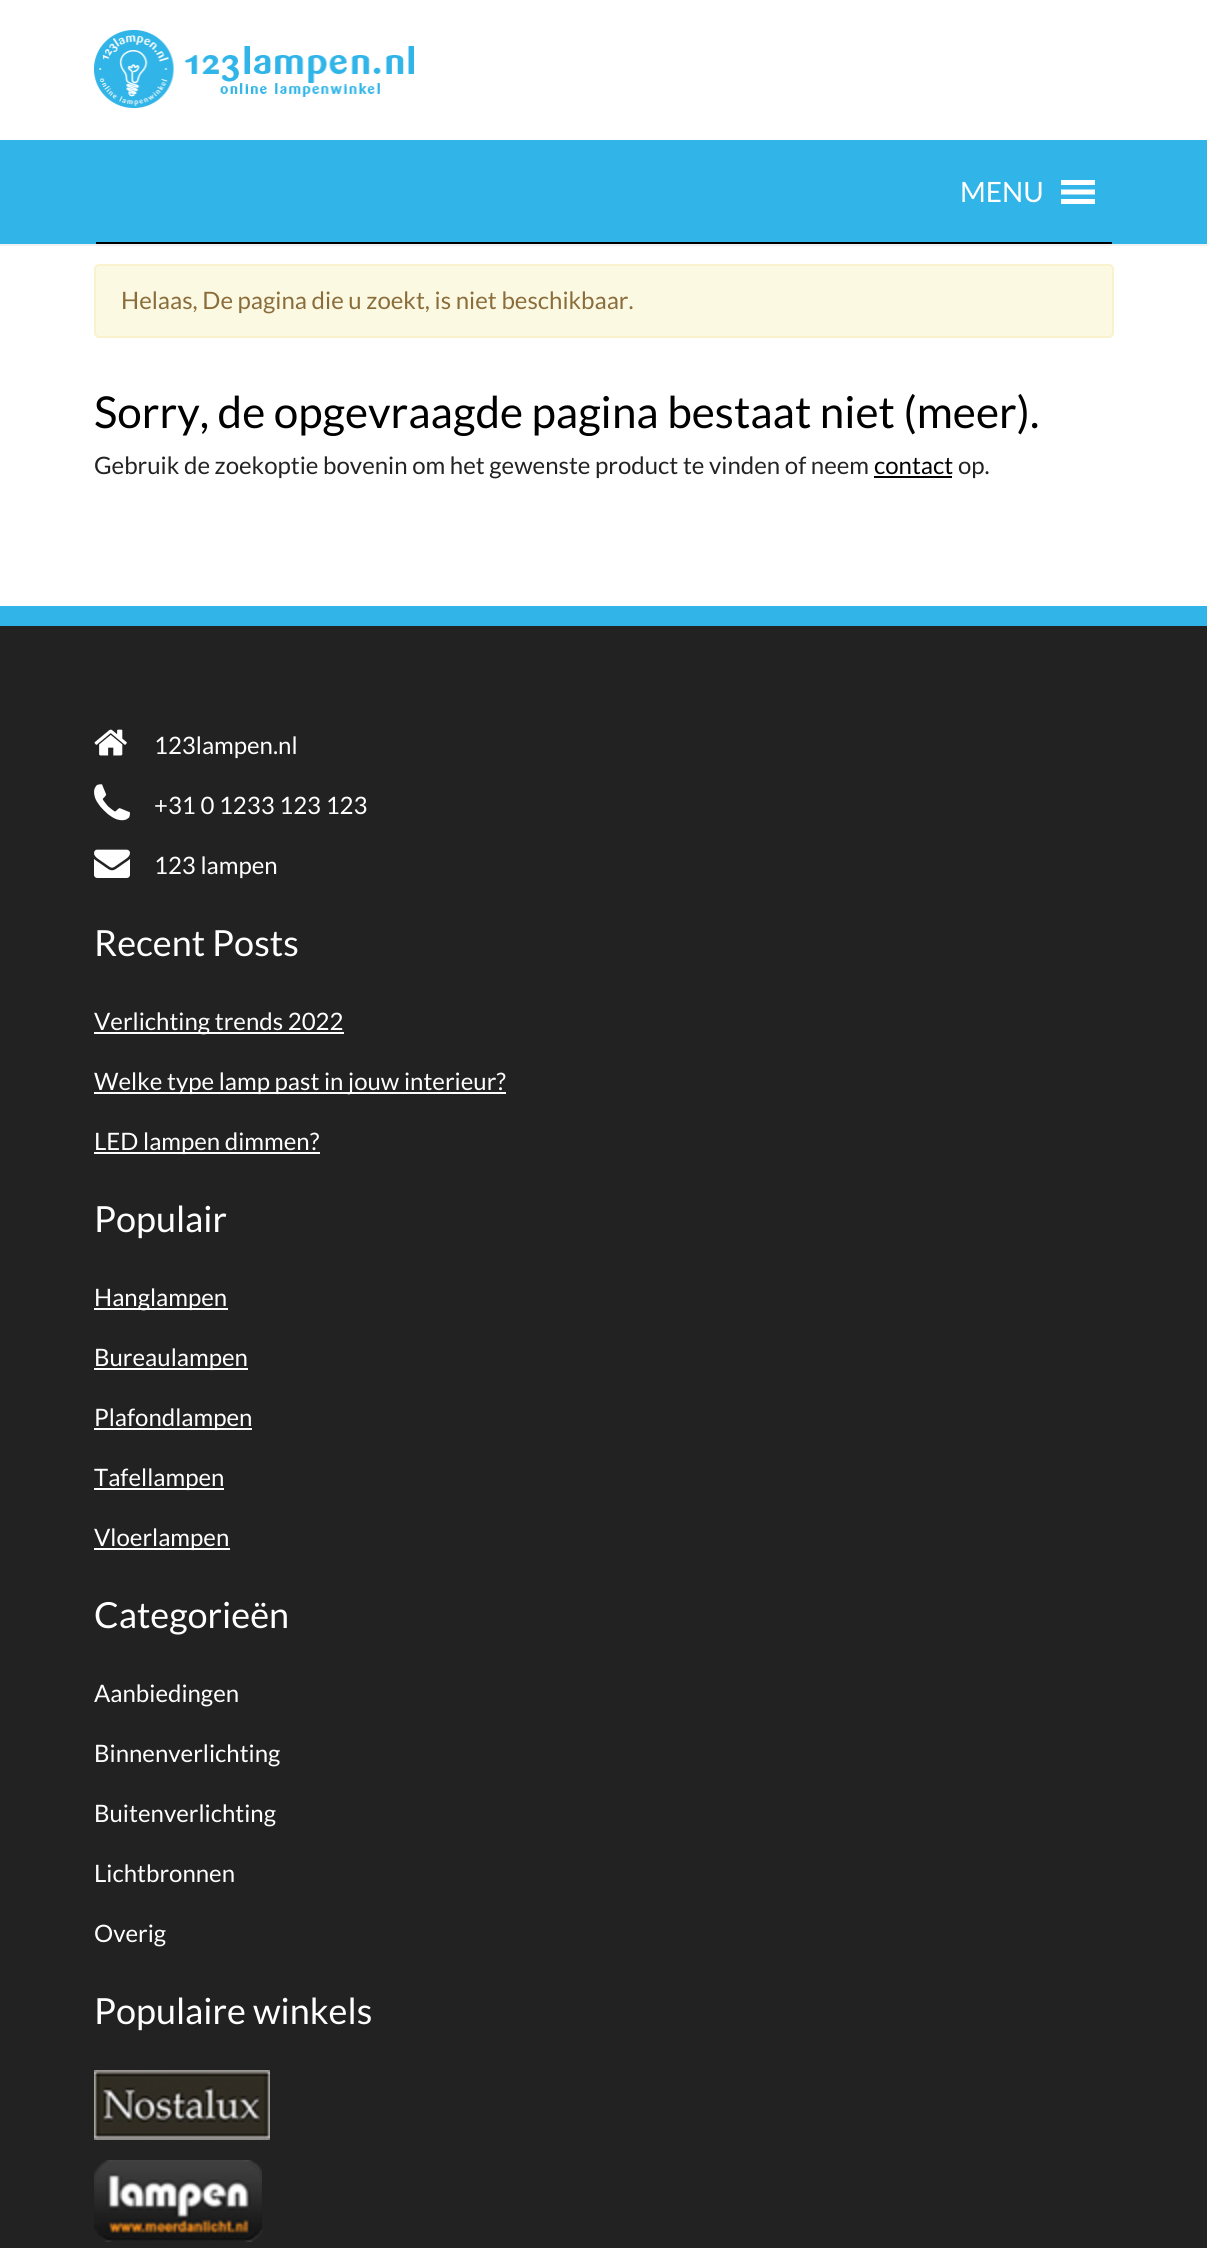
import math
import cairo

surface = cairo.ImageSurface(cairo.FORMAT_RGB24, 1207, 2248)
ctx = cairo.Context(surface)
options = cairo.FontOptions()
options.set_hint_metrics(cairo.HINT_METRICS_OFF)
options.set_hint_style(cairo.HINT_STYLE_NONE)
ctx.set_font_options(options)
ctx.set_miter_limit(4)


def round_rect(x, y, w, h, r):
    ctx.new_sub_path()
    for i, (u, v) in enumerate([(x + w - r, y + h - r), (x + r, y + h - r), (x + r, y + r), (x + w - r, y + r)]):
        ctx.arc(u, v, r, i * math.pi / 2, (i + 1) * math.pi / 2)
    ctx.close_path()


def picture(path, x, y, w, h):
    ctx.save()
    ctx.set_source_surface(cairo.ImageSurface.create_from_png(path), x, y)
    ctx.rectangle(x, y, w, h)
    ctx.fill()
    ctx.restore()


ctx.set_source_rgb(1, 1, 1)
ctx.paint()
ctx.set_source_rgb(0.945, 0.945, 0.945)
ctx.rectangle(0, 244, 1207, 2)
ctx.fill()
picture("img1.png", 94, 30, 320, 78)
ctx.set_source_rgb(0.192, 0.706, 0.906)
ctx.rectangle(0, 140, 1207, 104)
ctx.fill()
ctx.set_source_rgb(0, 0, 0)
ctx.rectangle(96, 242, 1016, 2)
ctx.fill()
ctx.select_font_face("Lato")
ctx.set_font_size(28)
ctx.set_source_rgb(1, 1, 1)
ctx.move_to(960, 202)
ctx.show_text("MENU")
ctx.new_path()
ctx.move_to(1061, 204)
ctx.line_to(1095, 204)
ctx.line_to(1095, 199)
ctx.line_to(1061, 199)
ctx.close_path()
ctx.move_to(1061, 180)
ctx.line_to(1061, 185)
ctx.line_to(1095, 185)
ctx.line_to(1095, 180)
ctx.close_path()
ctx.move_to(1061, 194.5)
ctx.line_to(1095, 194.5)
ctx.line_to(1095, 189.5)
ctx.line_to(1061, 189.5)
ctx.close_path()
ctx.fill()
ctx.set_source_rgb(0.988, 0.973, 0.89)
round_rect(95, 265, 1018, 72, 4)
ctx.fill_preserve()
ctx.set_source_rgb(0.98, 0.949, 0.8)
ctx.stroke()
ctx.set_font_size(24)
ctx.set_source_rgb(0.541, 0.427, 0.231)
ctx.move_to(121, 309)
ctx.show_text("Helaas, De pagina die u zoekt, is niet beschikbaar.")
ctx.set_font_size(44)
ctx.set_source_rgb(0, 0, 0)
ctx.move_to(94, 428)
ctx.show_text("Sorry, de opgevraagde pagina bestaat niet (meer).")
ctx.set_font_size(24)
ctx.set_source_rgb(0.137, 0.137, 0.137)
ctx.move_to(94, 474)
ctx.show_text("Gebruik de zoekoptie bovenin om het gewenste product te vinden of neem")
ctx.set_source_rgb(0, 0, 0)
ctx.move_to(874, 474)
ctx.show_text("contact")
ctx.rectangle(874, 476, 78, 2)
ctx.fill()
ctx.set_source_rgb(0.137, 0.137, 0.137)
ctx.move_to(958, 474)
ctx.show_text("op.")
ctx.set_source_rgb(0.133, 0.133, 0.133)
ctx.rectangle(0, 626, 1207, 1622)
ctx.fill()
ctx.set_source_rgb(0.192, 0.706, 0.906)
ctx.rectangle(0, 606, 1207, 20)
ctx.fill()
picture("img2.png", 94, 729, 33, 27)
ctx.set_source_rgb(1, 1, 1)
ctx.move_to(154, 754)
ctx.show_text("123lampen.nl")
picture("img3.png", 94, 784, 36, 37)
ctx.move_to(154, 814)
ctx.show_text("+31 0 1233 123 123")
picture("img4.png", 94, 849, 36, 29)
ctx.move_to(154, 874)
ctx.show_text("123 lampen")
ctx.set_font_size(36)
ctx.move_to(94, 956)
ctx.show_text("Recent Posts")
ctx.rectangle(94, 1032, 250, 2)
ctx.fill()
ctx.set_font_size(24)
ctx.move_to(94, 1030)
ctx.show_text("Verlichting trends 2022")
ctx.rectangle(94, 1092, 412, 2)
ctx.fill()
ctx.move_to(94, 1090)
ctx.show_text("Welke type lamp past in jouw interieur?")
ctx.rectangle(94, 1152, 226, 2)
ctx.fill()
ctx.move_to(94, 1150)
ctx.show_text("LED lampen dimmen?")
ctx.set_font_size(36)
ctx.move_to(94, 1232)
ctx.show_text("Populair")
ctx.rectangle(94, 1308, 134, 2)
ctx.fill()
ctx.set_font_size(24)
ctx.move_to(94, 1306)
ctx.show_text("Hanglampen")
ctx.rectangle(94, 1368, 154, 2)
ctx.fill()
ctx.move_to(94, 1366)
ctx.show_text("Bureaulampen")
ctx.rectangle(94, 1428, 158, 2)
ctx.fill()
ctx.move_to(94, 1426)
ctx.show_text("Plafondlampen")
ctx.rectangle(94, 1488, 130, 2)
ctx.fill()
ctx.move_to(94, 1486)
ctx.show_text("Tafellampen")
ctx.rectangle(94, 1548, 136, 2)
ctx.fill()
ctx.move_to(94, 1546)
ctx.show_text("Vloerlampen")
ctx.set_font_size(36)
ctx.move_to(94, 1628)
ctx.show_text("Categorieën")
ctx.set_font_size(24)
ctx.move_to(94, 1702)
ctx.show_text("Aanbiedingen")
ctx.move_to(94, 1762)
ctx.show_text("Binnenverlichting")
ctx.move_to(94, 1822)
ctx.show_text("Buitenverlichting")
ctx.move_to(94, 1882)
ctx.show_text("Lichtbronnen")
ctx.move_to(94, 1942)
ctx.show_text("Overig")
ctx.set_font_size(36)
ctx.move_to(94, 2024)
ctx.show_text("Populaire winkels")
picture("img5.png", 94, 2070, 176, 70)
picture("img6.png", 94, 2160, 168, 82)
surface.write_to_png("page.png")
